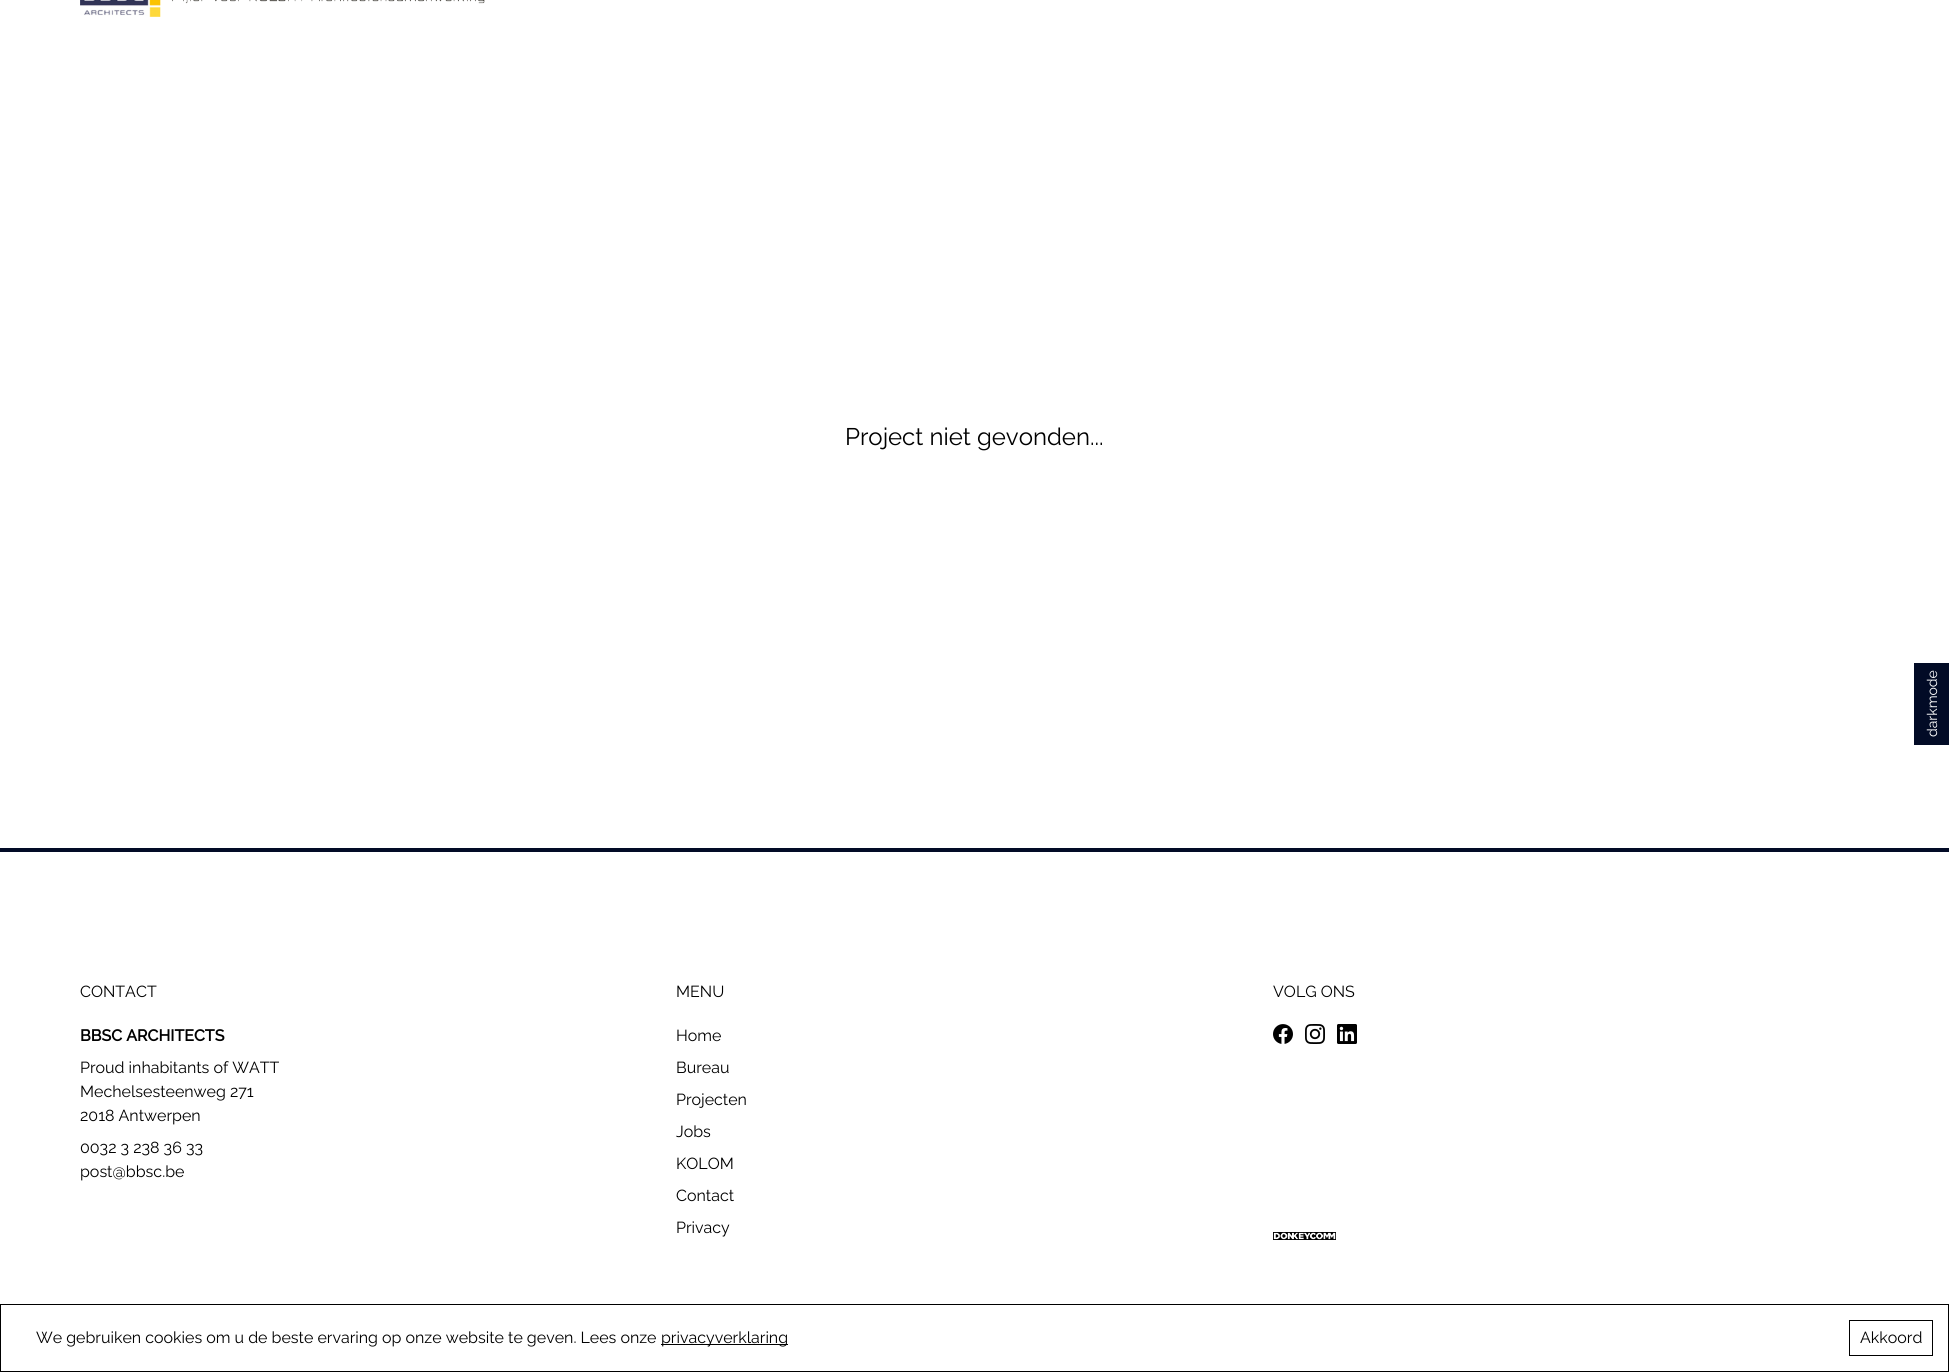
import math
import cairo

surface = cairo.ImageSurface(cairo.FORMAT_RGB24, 1949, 1372)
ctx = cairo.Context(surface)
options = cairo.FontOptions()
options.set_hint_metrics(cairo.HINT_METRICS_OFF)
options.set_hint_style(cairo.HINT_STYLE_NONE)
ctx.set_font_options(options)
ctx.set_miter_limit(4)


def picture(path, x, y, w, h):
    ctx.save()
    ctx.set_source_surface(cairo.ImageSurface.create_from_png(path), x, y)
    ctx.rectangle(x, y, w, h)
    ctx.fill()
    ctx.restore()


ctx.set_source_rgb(1, 1, 1)
ctx.paint()
picture("img1.png", 80, 0, 405, 17)
ctx.select_font_face("Raleway")
ctx.set_font_size(24)
ctx.set_source_rgb(0, 0, 0)
ctx.move_to(845, 445)
ctx.show_text("Project niet gevonden...")
ctx.set_source_rgb(0.008, 0.043, 0.149)
ctx.rectangle(1914, 663, 35, 82)
ctx.fill()
ctx.set_font_size(14)
ctx.set_source_rgb(1, 1, 1)
ctx.save()
ctx.translate(1937, 737)
ctx.rotate(-90 * math.pi / 180)
ctx.move_to(0, 0)
ctx.show_text("darkmode")
ctx.restore()
ctx.set_source_rgb(0.008, 0.043, 0.149)
ctx.rectangle(0, 848, 1949, 4)
ctx.fill()
ctx.set_font_size(16)
ctx.set_source_rgb(0, 0, 0)
ctx.move_to(80, 997)
ctx.show_text("CONTACT")
ctx.select_font_face("Raleway", cairo.FONT_SLANT_NORMAL, cairo.FONT_WEIGHT_BOLD)
ctx.move_to(80, 1041)
ctx.show_text("BBSC ARCHITECTS")
ctx.select_font_face("Raleway")
ctx.move_to(80, 1073)
ctx.show_text("Proud inhabitants of WATT")
ctx.move_to(80, 1097)
ctx.show_text("Mechelsesteenweg 271")
ctx.move_to(80, 1121)
ctx.show_text("2018 Antwerpen")
ctx.move_to(80, 1153)
ctx.show_text("0032 3 238 36 33")
ctx.move_to(80, 1177)
ctx.show_text("post@bbsc.be")
ctx.move_to(676, 997)
ctx.show_text("MENU")
ctx.move_to(676, 1041)
ctx.show_text("Home")
ctx.move_to(676, 1073)
ctx.show_text("Bureau")
ctx.move_to(676, 1105)
ctx.show_text("Projecten")
ctx.move_to(676, 1137)
ctx.show_text("Jobs")
ctx.move_to(676, 1169)
ctx.show_text("KOLOM")
ctx.move_to(676, 1201)
ctx.show_text("Contact")
ctx.move_to(676, 1233)
ctx.show_text("Privacy")
ctx.move_to(1273, 997)
ctx.show_text("VOLG ONS")
picture("img2.png", 1273, 1024, 20, 20)
picture("img3.png", 1305, 1024, 20, 20)
picture("img4.png", 1337, 1024, 20, 20)
picture("img5.png", 1273, 1232, 63, 8)
ctx.rectangle(0.5, 1304.5, 1948, 67)
ctx.set_line_width(1)
ctx.stroke()
ctx.move_to(36, 1343)
ctx.show_text("We gebruiken cookies om u de beste ervaring op onze website te geven. Lees onze")
ctx.rectangle(661, 1344, 127, 1)
ctx.fill()
ctx.move_to(661, 1343)
ctx.show_text("privacyverklaring")
ctx.rectangle(1849.5, 1320.5, 83, 35)
ctx.stroke()
ctx.move_to(1860, 1343)
ctx.show_text("Akkoord")
surface.write_to_png("page.png")
